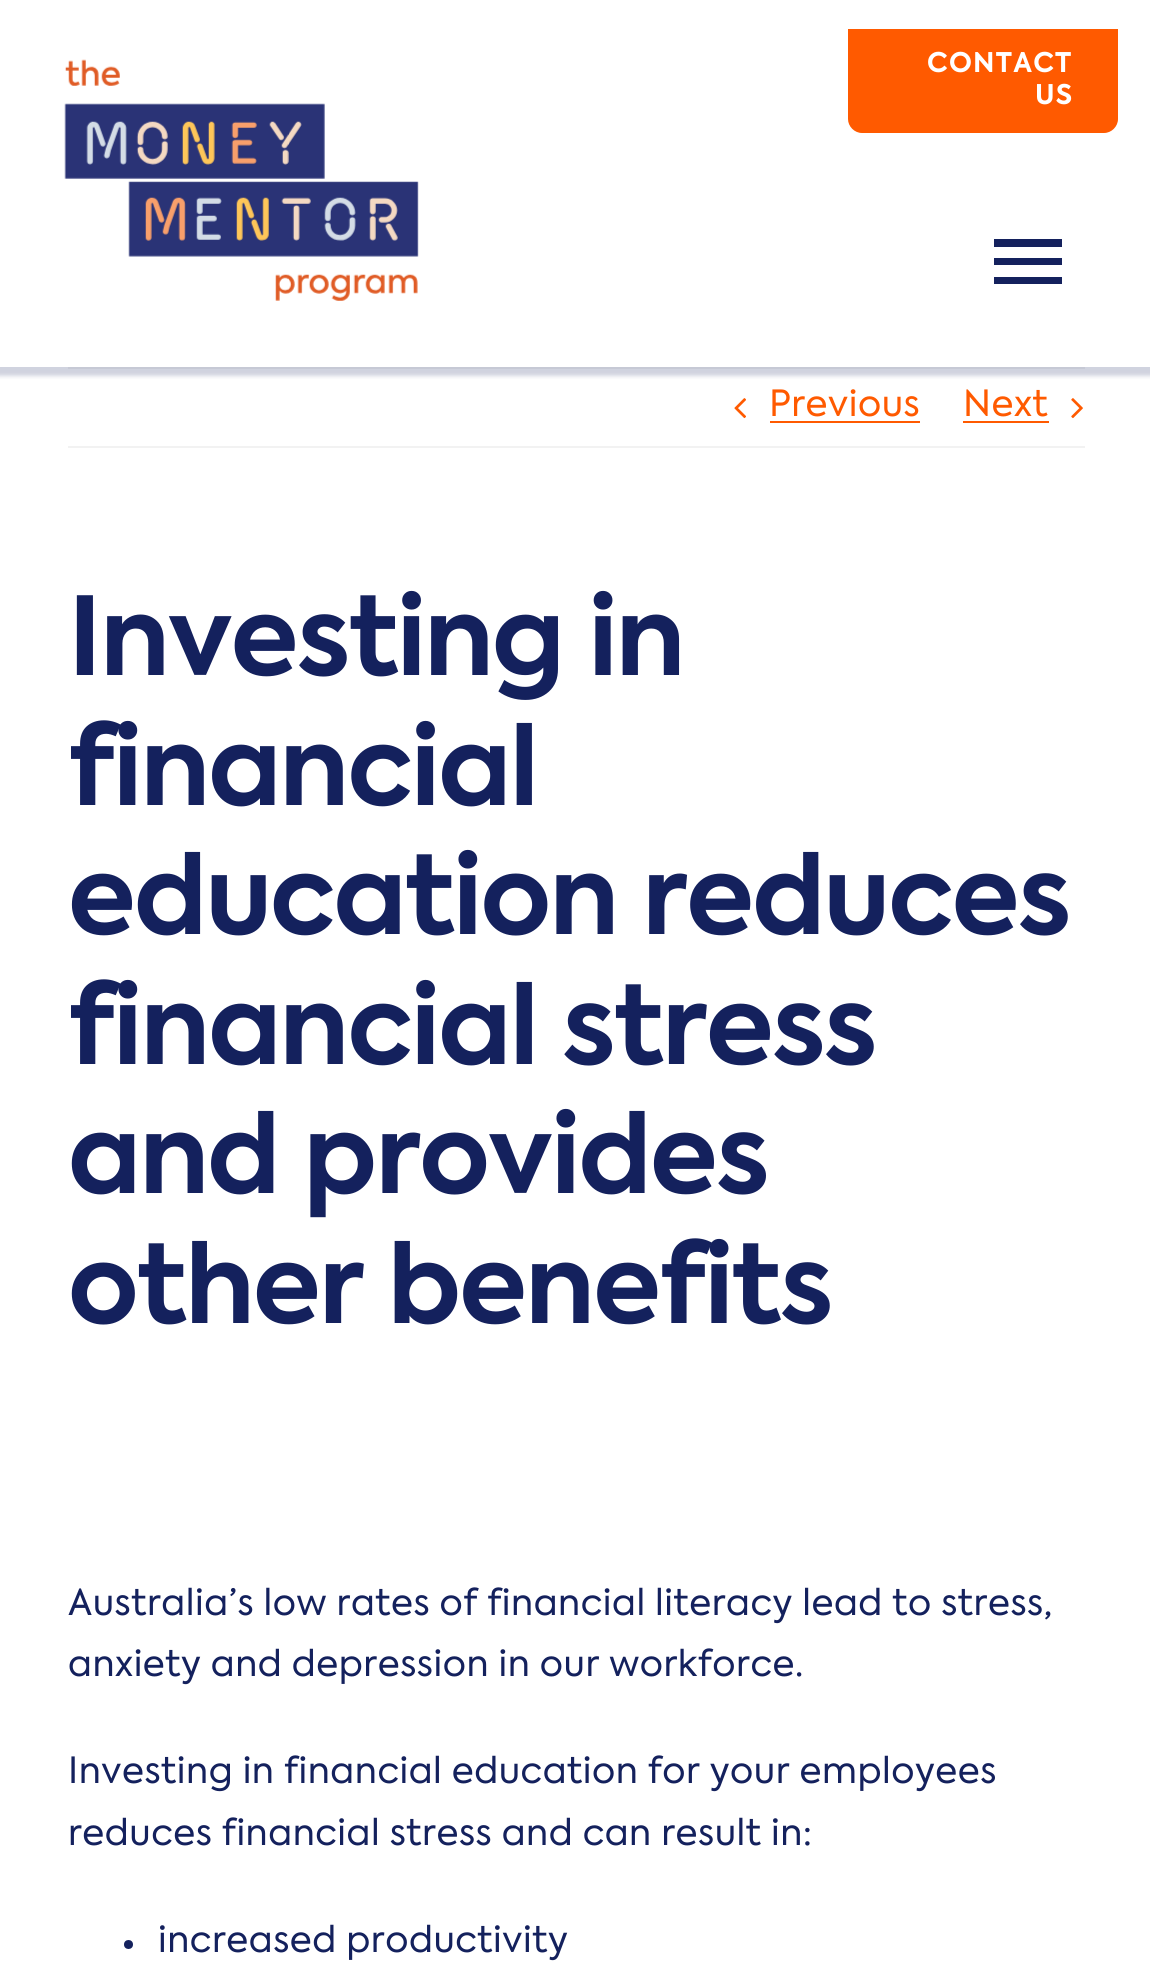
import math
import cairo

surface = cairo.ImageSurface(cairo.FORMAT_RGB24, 1150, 1976)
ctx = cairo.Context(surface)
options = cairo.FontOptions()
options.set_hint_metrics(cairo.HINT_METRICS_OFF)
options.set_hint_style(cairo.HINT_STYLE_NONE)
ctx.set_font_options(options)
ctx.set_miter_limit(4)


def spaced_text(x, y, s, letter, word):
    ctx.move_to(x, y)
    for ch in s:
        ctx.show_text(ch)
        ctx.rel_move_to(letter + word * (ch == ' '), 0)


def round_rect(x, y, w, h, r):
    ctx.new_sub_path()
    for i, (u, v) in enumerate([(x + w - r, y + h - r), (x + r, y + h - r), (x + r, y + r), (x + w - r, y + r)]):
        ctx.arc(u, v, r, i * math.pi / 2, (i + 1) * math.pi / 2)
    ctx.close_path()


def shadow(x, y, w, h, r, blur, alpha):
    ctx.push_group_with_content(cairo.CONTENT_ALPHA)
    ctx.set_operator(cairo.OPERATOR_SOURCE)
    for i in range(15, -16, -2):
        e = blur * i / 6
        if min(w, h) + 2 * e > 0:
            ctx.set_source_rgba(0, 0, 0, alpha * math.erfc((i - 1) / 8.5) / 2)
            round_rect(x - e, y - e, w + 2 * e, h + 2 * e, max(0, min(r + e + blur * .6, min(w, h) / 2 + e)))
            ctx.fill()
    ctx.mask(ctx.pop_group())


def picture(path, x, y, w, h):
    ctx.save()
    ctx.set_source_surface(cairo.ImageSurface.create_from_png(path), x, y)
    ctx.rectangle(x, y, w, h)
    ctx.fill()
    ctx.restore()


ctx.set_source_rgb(1, 1, 1)
ctx.paint()
ctx.set_source_rgb(0.949, 0.949, 0.949)
ctx.rectangle(68, 367, 1017, 2)
ctx.fill()
ctx.set_source_rgb(0.082, 0.129, 0.365)
shadow(-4, -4, 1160, 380, 0, 2, 0.2)
ctx.set_source_rgb(1, 1, 1)
ctx.rectangle(0, 0, 1150, 367)
ctx.fill()
picture("img1.png", 64, 59, 355, 242)
ctx.set_source_rgb(1, 0.353, 0)
ctx.new_path()
ctx.move_to(848, 29)
ctx.line_to(1118, 29)
ctx.line_to(1118, 119)
ctx.curve_to(1118, 126.5, 1111.5, 133, 1104, 133)
ctx.line_to(862, 133)
ctx.curve_to(854.5, 133, 848, 126.5, 848, 119)
ctx.close_path()
ctx.fill()
ctx.select_font_face("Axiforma", cairo.FONT_SLANT_NORMAL, cairo.FONT_WEIGHT_BOLD)
ctx.set_font_size(27)
ctx.set_source_rgb(1, 1, 1)
spaced_text(927, 72, "CONTACT", 1.25, 0)
spaced_text(1035, 104, "US", 1.25, 0)
ctx.set_source_rgb(0.082, 0.129, 0.365)
ctx.new_path()
ctx.move_to(994, 239)
ctx.line_to(1062, 239)
ctx.line_to(1062, 247)
ctx.line_to(994, 247)
ctx.close_path()
ctx.move_to(994, 265)
ctx.line_to(994, 258)
ctx.line_to(1062, 258)
ctx.line_to(1062, 265)
ctx.close_path()
ctx.move_to(994, 284)
ctx.line_to(994, 277)
ctx.line_to(1062, 277)
ctx.line_to(1062, 284)
ctx.close_path()
ctx.fill()
ctx.set_source_rgb(0.949, 0.949, 0.949)
ctx.rectangle(68, 446, 1017, 2)
ctx.fill()
picture("img2.png", 734, 398, 12, 21)
ctx.select_font_face("Axiforma")
ctx.set_font_size(36)
ctx.set_source_rgb(1, 0.353, 0)
spaced_text(769, 416, "Previous", 0.55, 0)
ctx.rectangle(770, 421, 150, 2)
ctx.fill()
spaced_text(963, 416, "Next", 0.55, 0)
ctx.rectangle(963, 421, 86, 2)
ctx.fill()
picture("img3.png", 1071, 398, 12, 21)
ctx.select_font_face("Axiforma", cairo.FONT_SLANT_NORMAL, cairo.FONT_WEIGHT_BOLD)
ctx.set_font_size(108)
ctx.set_source_rgb(0.082, 0.129, 0.365)
spaced_text(68, 675, "Investing in", -1.6, 0)
spaced_text(68, 805, "financial", -1.6, 0)
spaced_text(68, 934, "education reduces", -1.6, 0)
spaced_text(68, 1064, "financial stress", -1.6, 0)
spaced_text(68, 1193, "and provides", -1.6, 0)
spaced_text(68, 1323, "other benefits", -1.6, 0)
ctx.select_font_face("Axiforma")
ctx.set_font_size(36)
spaced_text(68, 1615, "Australia’s low rates of financial literacy lead to stress,", 0.55, 0)
spaced_text(68, 1676, "anxiety and depression in our workforce.", 0.55, 0)
spaced_text(68, 1783, "Investing in financial education for your employees", 0.55, 0)
spaced_text(68, 1845, "reduces financial stress and can result in:", 0.55, 0)
ctx.new_path()
ctx.arc(128.5, 1944.5, 4.5, 0, 2 * math.pi)
ctx.fill()
spaced_text(158, 1952, "increased productivity", 0.55, 0)
surface.write_to_png("page.png")
